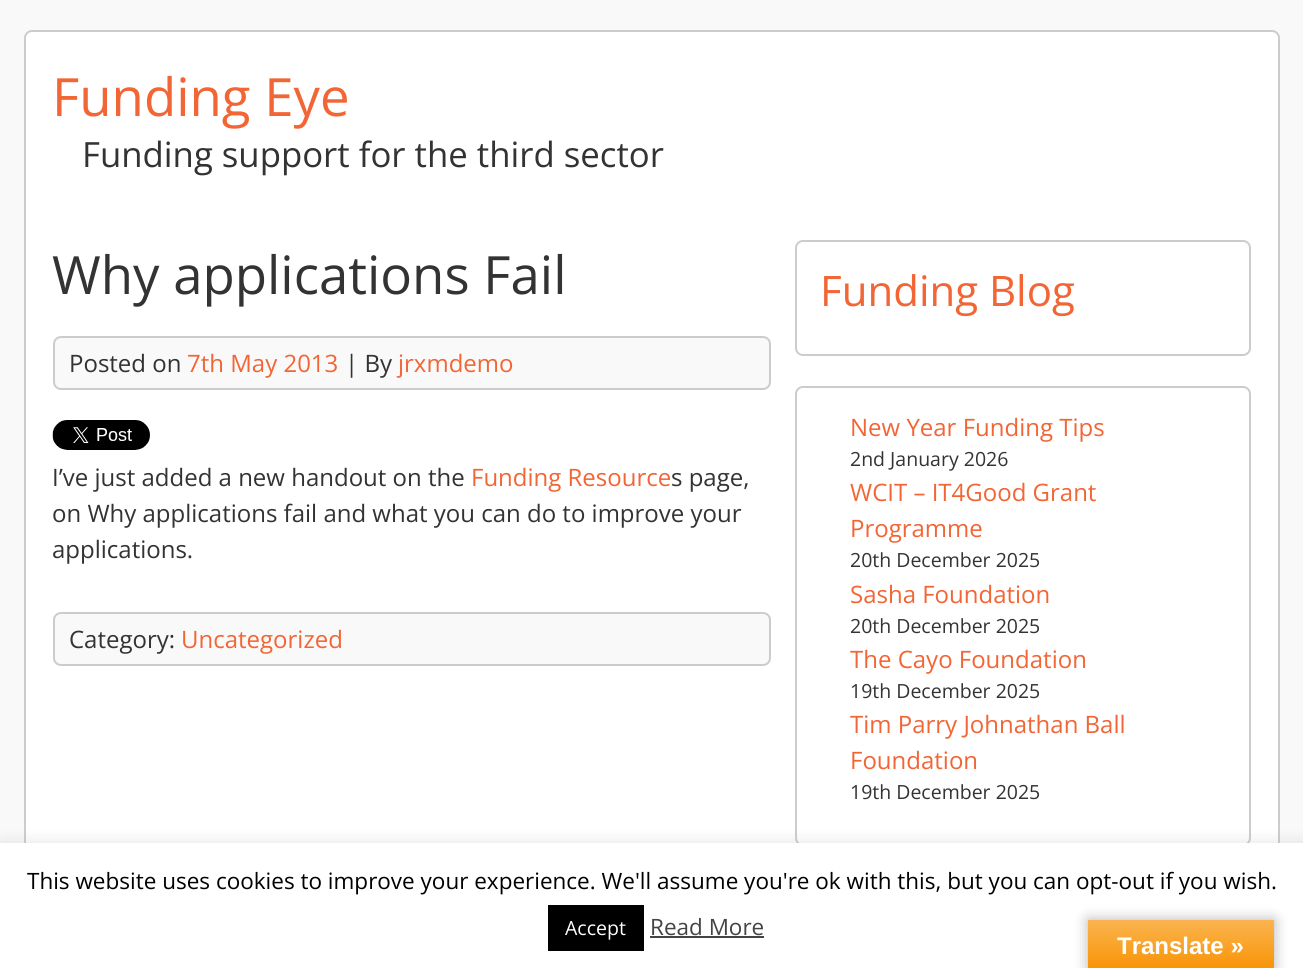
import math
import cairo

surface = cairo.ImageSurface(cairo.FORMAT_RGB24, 1303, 968)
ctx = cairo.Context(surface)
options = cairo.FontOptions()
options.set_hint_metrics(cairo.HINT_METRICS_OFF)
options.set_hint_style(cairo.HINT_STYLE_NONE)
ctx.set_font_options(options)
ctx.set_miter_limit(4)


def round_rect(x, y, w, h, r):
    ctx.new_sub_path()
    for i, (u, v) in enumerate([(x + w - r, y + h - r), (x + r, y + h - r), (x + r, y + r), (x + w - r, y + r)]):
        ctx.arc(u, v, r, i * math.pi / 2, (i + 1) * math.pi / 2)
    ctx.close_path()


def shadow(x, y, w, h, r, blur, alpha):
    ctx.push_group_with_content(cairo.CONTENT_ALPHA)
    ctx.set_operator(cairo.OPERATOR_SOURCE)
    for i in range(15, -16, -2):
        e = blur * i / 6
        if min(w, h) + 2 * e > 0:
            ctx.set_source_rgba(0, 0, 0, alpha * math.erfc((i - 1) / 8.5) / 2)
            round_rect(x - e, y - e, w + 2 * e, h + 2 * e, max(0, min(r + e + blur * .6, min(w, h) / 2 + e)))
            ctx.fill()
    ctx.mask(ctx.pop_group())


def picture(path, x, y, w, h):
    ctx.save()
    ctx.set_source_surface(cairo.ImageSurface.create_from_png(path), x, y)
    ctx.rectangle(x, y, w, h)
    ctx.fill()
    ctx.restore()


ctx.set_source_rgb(0.973, 0.973, 0.973)
ctx.paint()
ctx.set_source_rgb(1, 1, 1)
round_rect(25, 31, 1254, 930, 7)
ctx.fill_preserve()
ctx.set_source_rgb(0.8, 0.8, 0.8)
ctx.stroke()
ctx.select_font_face("Open Sans")
ctx.set_font_size(52.75)
ctx.set_source_rgb(0.949, 0.396, 0.208)
ctx.move_to(52, 116)
ctx.show_text("Funding Eye")
ctx.set_font_size(34.75)
ctx.set_source_rgb(0.2, 0.2, 0.2)
ctx.move_to(82, 167)
ctx.show_text("Funding support for the third sector")
ctx.set_font_size(52.75)
ctx.move_to(52, 294)
ctx.show_text("Why applications Fail")
ctx.set_source_rgb(0.973, 0.973, 0.973)
round_rect(54, 337, 716, 52, 7)
ctx.fill_preserve()
ctx.set_source_rgb(0.8, 0.8, 0.8)
ctx.stroke()
ctx.set_font_size(24)
ctx.set_source_rgb(0.2, 0.2, 0.2)
ctx.move_to(69, 372)
ctx.show_text("Posted on")
ctx.set_source_rgb(0.949, 0.396, 0.208)
ctx.move_to(187, 372)
ctx.show_text("7th May 2013")
ctx.set_source_rgb(0.2, 0.2, 0.2)
ctx.move_to(345, 372)
ctx.show_text("| By")
ctx.set_source_rgb(0.949, 0.396, 0.208)
ctx.move_to(398, 372)
ctx.show_text("jrxmdemo")
picture("img1.png", 52, 420, 98, 30)
ctx.set_source_rgb(0.2, 0.2, 0.2)
ctx.move_to(52, 486)
ctx.show_text("I’ve just added a new handout on the")
ctx.set_source_rgb(0.949, 0.396, 0.208)
ctx.move_to(471, 486)
ctx.show_text("Funding Resource")
ctx.set_source_rgb(0.2, 0.2, 0.2)
ctx.move_to(671, 486)
ctx.show_text("s page,")
ctx.move_to(52, 522)
ctx.show_text("on Why applications fail and what you can do to improve your")
ctx.move_to(52, 558)
ctx.show_text("applications.")
ctx.set_source_rgb(0.973, 0.973, 0.973)
round_rect(54, 613, 716, 52, 7)
ctx.fill_preserve()
ctx.set_source_rgb(0.8, 0.8, 0.8)
ctx.stroke()
ctx.set_source_rgb(0.2, 0.2, 0.2)
ctx.move_to(69, 648)
ctx.show_text("Category:")
ctx.set_source_rgb(0.949, 0.396, 0.208)
ctx.move_to(181, 648)
ctx.show_text("Uncategorized")
round_rect(796, 241, 454, 114, 7)
ctx.set_source_rgb(0.8, 0.8, 0.8)
ctx.stroke()
ctx.set_font_size(42)
ctx.set_source_rgb(0.949, 0.396, 0.208)
ctx.move_to(820, 306)
ctx.show_text("Funding Blog")
round_rect(796, 387, 454, 458, 7)
ctx.set_source_rgb(0.8, 0.8, 0.8)
ctx.stroke()
ctx.set_font_size(24)
ctx.set_source_rgb(0.949, 0.396, 0.208)
ctx.move_to(850, 436)
ctx.show_text("New Year Funding Tips")
ctx.set_font_size(19.5)
ctx.set_source_rgb(0.2, 0.2, 0.2)
ctx.move_to(850, 466)
ctx.show_text("2nd January 2026")
ctx.set_font_size(24)
ctx.set_source_rgb(0.949, 0.396, 0.208)
ctx.move_to(850, 501)
ctx.show_text("WCIT – IT4Good Grant")
ctx.move_to(850, 537)
ctx.show_text("Programme")
ctx.set_font_size(19.5)
ctx.set_source_rgb(0.2, 0.2, 0.2)
ctx.move_to(850, 567)
ctx.show_text("20th December 2025")
ctx.set_font_size(24)
ctx.set_source_rgb(0.949, 0.396, 0.208)
ctx.move_to(850, 603)
ctx.show_text("Sasha Foundation")
ctx.set_font_size(19.5)
ctx.set_source_rgb(0.2, 0.2, 0.2)
ctx.move_to(850, 633)
ctx.show_text("20th December 2025")
ctx.set_font_size(24)
ctx.set_source_rgb(0.949, 0.396, 0.208)
ctx.move_to(850, 668)
ctx.show_text("The Cayo Foundation")
ctx.set_font_size(19.5)
ctx.set_source_rgb(0.2, 0.2, 0.2)
ctx.move_to(850, 698)
ctx.show_text("19th December 2025")
ctx.set_font_size(24)
ctx.set_source_rgb(0.949, 0.396, 0.208)
ctx.move_to(850, 733)
ctx.show_text("Tim Parry Johnathan Ball")
ctx.move_to(850, 769)
ctx.show_text("Foundation")
ctx.set_font_size(19.5)
ctx.set_source_rgb(0.2, 0.2, 0.2)
ctx.move_to(850, 799)
ctx.show_text("19th December 2025")
ctx.set_source_rgb(0.675, 0.671, 0.671)
shadow(0, 842, 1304, 126, 0, 7.5, 0.3)
ctx.set_source_rgb(1, 1, 1)
ctx.rectangle(0, 843, 1303, 125)
ctx.fill()
ctx.set_font_size(22.5)
ctx.set_source_rgb(0, 0, 0)
ctx.move_to(27, 889)
ctx.show_text("This website uses cookies to improve your experience. We'll assume you're ok with this, but you can opt-out if you wish.")
ctx.rectangle(548, 905, 96, 46)
ctx.fill()
ctx.set_font_size(19.5)
ctx.set_source_rgb(1, 1, 1)
ctx.move_to(565, 935)
ctx.show_text("Accept")
ctx.set_font_size(22.5)
ctx.set_source_rgb(0.267, 0.267, 0.267)
ctx.move_to(650, 935)
ctx.show_text("Read More")
ctx.rectangle(650, 936, 114, 2)
ctx.fill()
ctx.set_source_rgb(0, 0, 0)
shadow(1088, 920, 186, 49, 0, 7, 0.3)
gradient = cairo.LinearGradient(1181, 920, 1181, 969)
gradient.add_color_stop_rgba(0, 0.984, 0.706, 0.314, 1)
gradient.add_color_stop_rgba(1, 0.973, 0.58, 0.024, 1)
ctx.set_source(gradient)
ctx.rectangle(1088, 920, 186, 48)
ctx.fill()
ctx.select_font_face("Liberation Sans", cairo.FONT_SLANT_NORMAL, cairo.FONT_WEIGHT_BOLD)
ctx.set_font_size(24)
ctx.set_source_rgb(1, 1, 1)
ctx.move_to(1117, 954)
ctx.show_text("Translate »")
surface.write_to_png("page.png")
